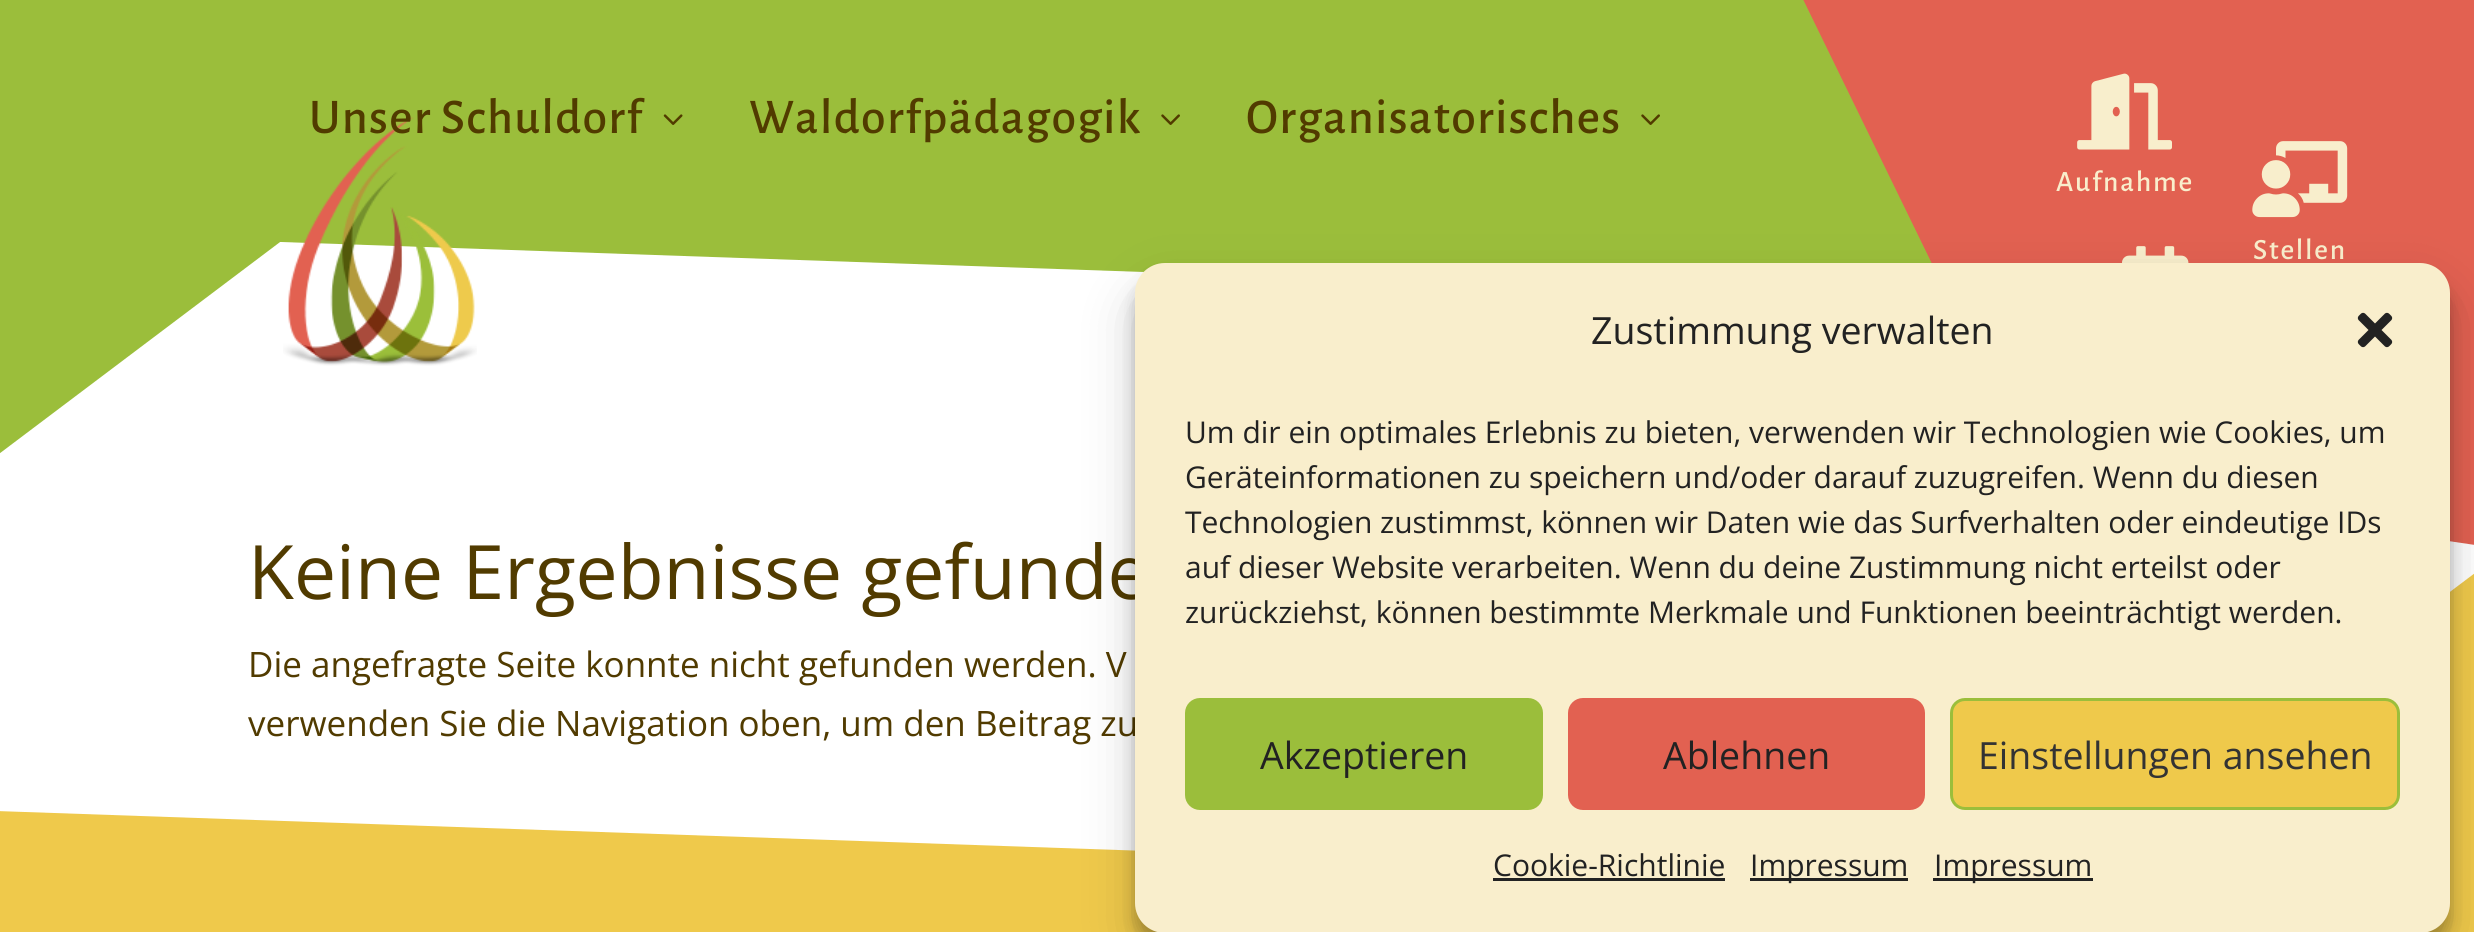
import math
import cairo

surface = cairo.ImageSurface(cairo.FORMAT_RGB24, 2474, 932)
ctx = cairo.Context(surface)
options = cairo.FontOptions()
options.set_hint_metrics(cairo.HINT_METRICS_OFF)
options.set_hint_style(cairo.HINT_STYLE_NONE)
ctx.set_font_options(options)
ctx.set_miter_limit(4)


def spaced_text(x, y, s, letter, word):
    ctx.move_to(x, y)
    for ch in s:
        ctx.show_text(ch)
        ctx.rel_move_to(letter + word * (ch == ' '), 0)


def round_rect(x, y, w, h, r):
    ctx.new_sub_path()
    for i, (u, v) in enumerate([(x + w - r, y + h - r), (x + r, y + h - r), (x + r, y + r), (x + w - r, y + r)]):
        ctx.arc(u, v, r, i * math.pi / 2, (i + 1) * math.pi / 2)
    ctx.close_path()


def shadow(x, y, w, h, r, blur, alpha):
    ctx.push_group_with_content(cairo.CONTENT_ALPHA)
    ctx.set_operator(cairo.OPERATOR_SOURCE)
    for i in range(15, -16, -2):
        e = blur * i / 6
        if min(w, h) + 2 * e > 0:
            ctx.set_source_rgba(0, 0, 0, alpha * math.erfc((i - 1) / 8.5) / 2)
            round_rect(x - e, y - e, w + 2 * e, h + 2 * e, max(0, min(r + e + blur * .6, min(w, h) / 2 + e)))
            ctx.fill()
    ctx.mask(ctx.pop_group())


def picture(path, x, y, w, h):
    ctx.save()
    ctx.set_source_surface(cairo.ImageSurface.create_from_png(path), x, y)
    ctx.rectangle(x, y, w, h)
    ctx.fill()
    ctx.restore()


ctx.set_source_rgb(1, 1, 1)
ctx.paint()
ctx.set_source_rgb(0.608, 0.745, 0.231)
ctx.new_path()
ctx.move_to(9, -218)
ctx.line_to(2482, -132)
ctx.line_to(2466, 318)
ctx.line_to(-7, 232)
ctx.close_path()
ctx.fill()
ctx.new_path()
ctx.move_to(8, -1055)
ctx.line_to(700, -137)
ctx.curve_to(717, -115, 712, -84, 690, -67)
ctx.line_to(-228, 625)
ctx.curve_to(-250, 642, -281, 637, -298, 615)
ctx.line_to(-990, -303)
ctx.curve_to(-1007, -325, -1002, -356, -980, -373)
ctx.line_to(-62, -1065)
ctx.curve_to(-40, -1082, -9, -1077, 8, -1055)
ctx.close_path()
ctx.fill()
picture("img1.png", 283, 117, 194, 249)
ctx.select_font_face("Alegreya Sans Medium")
ctx.set_font_size(50)
ctx.set_source_rgb(0.318, 0.231, 0)
spaced_text(309, 133, "Unser Schuldorf", 1.25, 0)
picture("img2.png", 663, 114, 20, 11)
spaced_text(749, 133, "Waldorfpädagogik", 1.25, 0)
picture("img3.png", 1161, 114, 19, 11)
spaced_text(1246, 133, "Organisatorisches", 1.25, 0)
picture("img3.png", 1641, 114, 19, 11)
ctx.set_source_rgb(0.886, 0.38, 0.318)
ctx.new_path()
ctx.move_to(1519, -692)
ctx.line_to(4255, -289)
ctx.curve_to(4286, -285, 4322, -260, 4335, -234)
ctx.line_to(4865, 853)
ctx.curve_to(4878, 879, 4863, 897, 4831, 892)
ctx.line_to(2095, 489)
ctx.curve_to(2064, 485, 2028, 460, 2015, 434)
ctx.line_to(1485, -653)
ctx.curve_to(1472, -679, 1487, -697, 1519, -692)
ctx.close_path()
ctx.fill()
picture("img4.png", 2077, 73, 95, 77)
ctx.set_font_size(29.5)
ctx.set_source_rgb(0.973, 0.933, 0.8)
spaced_text(2056, 191, "Aufnahme", 1.75, 0)
picture("img5.png", 2122, 246, 67, 17)
picture("img6.png", 2252, 141, 96, 77)
spaced_text(2253, 259, "Stellen", 1.75, 0)
ctx.select_font_face("Open Sans")
ctx.set_font_size(75)
ctx.set_source_rgb(0.318, 0.231, 0)
ctx.move_to(248, 599)
ctx.show_text("Keine Ergebnisse gefunde")
ctx.set_font_size(35)
ctx.move_to(248, 677)
ctx.show_text("Die angefragte Seite konnte nicht gefunden werden. V")
ctx.move_to(248, 736)
ctx.show_text("verwenden Sie die Navigation oben, um den Beitrag zu")
ctx.set_source_rgb(0.937, 0.788, 0.294)
ctx.new_path()
ctx.move_to(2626, 522)
ctx.line_to(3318, 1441)
ctx.curve_to(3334, 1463, 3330, 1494, 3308, 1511)
ctx.line_to(2389, 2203)
ctx.curve_to(2367, 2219, 2336, 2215, 2319, 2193)
ctx.line_to(1627, 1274)
ctx.curve_to(1611, 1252, 1615, 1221, 1637, 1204)
ctx.line_to(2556, 512)
ctx.curve_to(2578, 496, 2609, 500, 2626, 522)
ctx.close_path()
ctx.fill()
ctx.new_path()
ctx.move_to(-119, 807)
ctx.line_to(2355, 893)
ctx.line_to(2344, 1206)
ctx.line_to(-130, 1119)
ctx.close_path()
ctx.fill()
ctx.set_source_rgb(0, 0, 0)
shadow(1135, 278, 1315, 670, 30, 7.5, 0.23)
shadow(1135, 288, 1315, 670, 30, 25, 0.19)
ctx.set_source_rgb(0.973, 0.933, 0.8)
round_rect(1135, 263, 1315, 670, 30)
ctx.fill()
ctx.set_font_size(37.5)
ctx.set_source_rgb(0.133, 0.133, 0.133)
ctx.move_to(1591, 344)
ctx.show_text("Zustimmung verwalten")
picture("img7.png", 2357, 312, 36, 36)
ctx.set_font_size(30)
ctx.move_to(1185, 443)
ctx.show_text("Um dir ein optimales Erlebnis zu bieten, verwenden wir Technologien wie Cookies, um")
ctx.move_to(1185, 488)
ctx.show_text("Geräteinformationen zu speichern und/oder darauf zuzugreifen. Wenn du diesen")
ctx.move_to(1185, 533)
ctx.show_text("Technologien zustimmst, können wir Daten wie das Surfverhalten oder eindeutige IDs")
ctx.move_to(1185, 578)
ctx.show_text("auf dieser Website verarbeiten. Wenn du deine Zustimmung nicht erteilst oder")
ctx.move_to(1185, 623)
ctx.show_text("zurückziehst, können bestimmte Merkmale und Funktionen beeinträchtigt werden.")
ctx.set_source_rgb(0.608, 0.745, 0.231)
round_rect(1186.5, 699.5, 355, 109, 13.5)
ctx.fill_preserve()
ctx.set_line_width(3)
ctx.stroke()
ctx.set_font_size(37.5)
ctx.set_source_rgb(0.133, 0.133, 0.133)
ctx.move_to(1260, 769)
ctx.show_text("Akzeptieren")
ctx.set_source_rgb(0.886, 0.38, 0.318)
round_rect(1569.5, 699.5, 354, 109, 13.5)
ctx.fill_preserve()
ctx.stroke()
ctx.set_source_rgb(0.133, 0.133, 0.133)
ctx.move_to(1663, 769)
ctx.show_text("Ablehnen")
ctx.set_source_rgb(0.937, 0.788, 0.294)
round_rect(1951.5, 699.5, 447, 109, 13.5)
ctx.fill_preserve()
ctx.set_source_rgb(0.608, 0.745, 0.231)
ctx.stroke()
ctx.set_source_rgb(0.2, 0.2, 0.2)
ctx.move_to(1978, 769)
ctx.show_text("Einstellungen ansehen")
ctx.set_font_size(30)
ctx.set_source_rgb(0.133, 0.133, 0.133)
ctx.move_to(1493, 876)
ctx.show_text("Cookie-Richtlinie")
ctx.rectangle(1493, 878, 232, 3)
ctx.fill()
ctx.rectangle(1750, 878, 158, 3)
ctx.fill()
ctx.move_to(1750, 876)
ctx.show_text("Impressum")
ctx.rectangle(1933, 878, 160, 3)
ctx.fill()
ctx.move_to(1934, 876)
ctx.show_text("Impressum")
surface.write_to_png("page.png")
